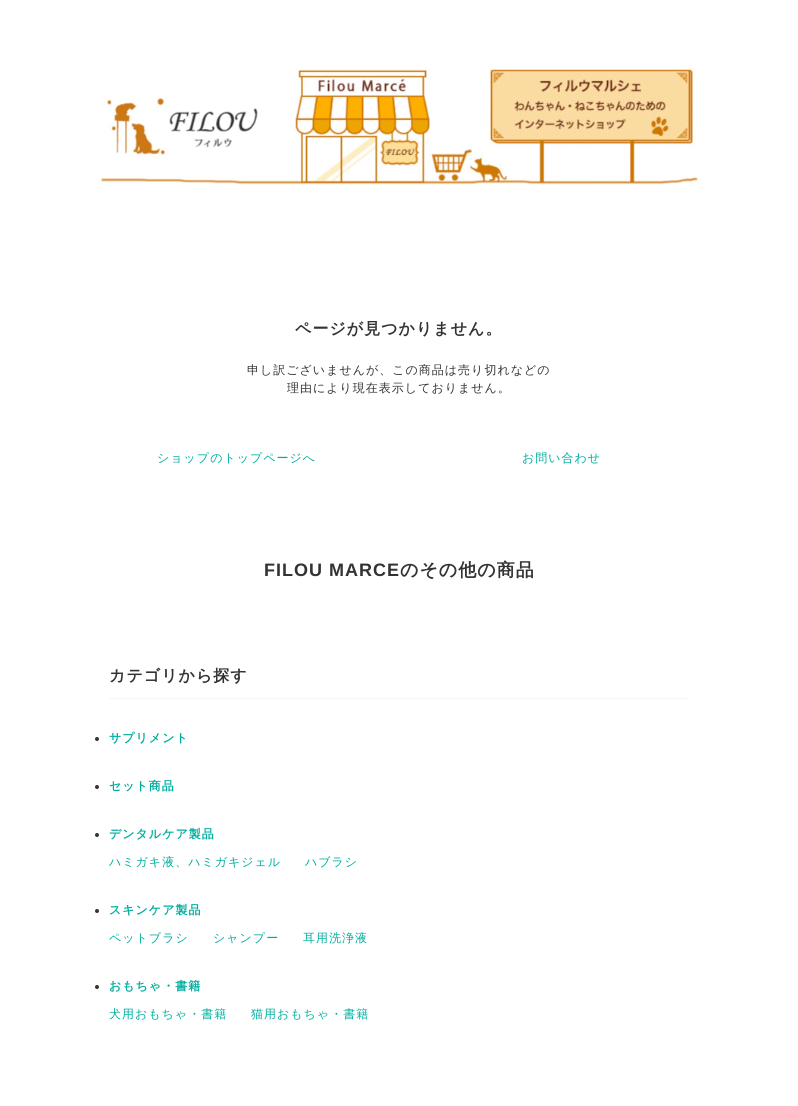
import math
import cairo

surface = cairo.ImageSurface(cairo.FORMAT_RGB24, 798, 1106)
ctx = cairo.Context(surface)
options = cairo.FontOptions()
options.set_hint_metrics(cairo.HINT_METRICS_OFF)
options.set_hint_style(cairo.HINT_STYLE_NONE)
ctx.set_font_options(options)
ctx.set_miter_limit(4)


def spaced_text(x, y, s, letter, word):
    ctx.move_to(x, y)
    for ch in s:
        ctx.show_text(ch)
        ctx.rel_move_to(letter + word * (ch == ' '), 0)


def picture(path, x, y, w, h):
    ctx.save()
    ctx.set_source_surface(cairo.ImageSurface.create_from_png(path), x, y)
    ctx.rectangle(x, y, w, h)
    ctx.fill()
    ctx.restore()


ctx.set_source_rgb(1, 1, 1)
ctx.paint()
picture("img1.png", 96, 68, 602, 117)
ctx.select_font_face("WenQuanYi Zen Hei", cairo.FONT_SLANT_NORMAL, cairo.FONT_WEIGHT_BOLD)
ctx.set_font_size(16)
ctx.set_source_rgb(0.2, 0.2, 0.2)
spaced_text(295, 334, "ページが見つかりません。", 1, 0)
ctx.select_font_face("WenQuanYi Zen Hei Medium")
ctx.set_font_size(12)
spaced_text(247, 374, "申し訳ございませんが、この商品は売り切れなどの", 1, 0)
spaced_text(287, 392, "理由により現在表示しておりません。", 1, 0)
ctx.set_source_rgb(0, 0.682, 0.624)
spaced_text(157, 462, "ショップのトップページへ", 1, 0)
spaced_text(522, 462, "お問い合わせ", 1, 0)
ctx.select_font_face("Liberation Sans", cairo.FONT_SLANT_NORMAL, cairo.FONT_WEIGHT_BOLD)
ctx.set_font_size(18)
ctx.set_source_rgb(0.2, 0.2, 0.2)
spaced_text(264, 576, "FILOU MARCE", 1, 0)
ctx.select_font_face("WenQuanYi Zen Hei", cairo.FONT_SLANT_NORMAL, cairo.FONT_WEIGHT_BOLD)
spaced_text(400, 576, "のその他の商品", 1, 0)
ctx.set_source_rgb(0.961, 0.961, 0.961)
ctx.rectangle(109, 698, 580, 1)
ctx.fill()
ctx.set_font_size(16)
ctx.set_source_rgb(0.2, 0.2, 0.2)
spaced_text(109, 681, "カテゴリから探す", 1, 0)
ctx.new_path()
ctx.arc(97, 739, 2, 0, 2 * math.pi)
ctx.fill()
ctx.set_font_size(12)
ctx.set_source_rgb(0, 0.682, 0.624)
spaced_text(109, 742, "サプリメント", 1, 0)
ctx.set_source_rgb(0.2, 0.2, 0.2)
ctx.new_path()
ctx.arc(97, 787, 2, 0, 2 * math.pi)
ctx.fill()
ctx.set_source_rgb(0, 0.682, 0.624)
spaced_text(109, 790, "セット商品", 1, 0)
ctx.set_source_rgb(0.2, 0.2, 0.2)
ctx.new_path()
ctx.arc(97, 835, 2, 0, 2 * math.pi)
ctx.fill()
ctx.set_source_rgb(0, 0.682, 0.624)
spaced_text(109, 838, "デンタルケア製品", 1, 0)
ctx.select_font_face("WenQuanYi Zen Hei Medium")
spaced_text(109, 866, "ハミガキ液、ハミガキジェル", 1, 0)
spaced_text(305, 866, "ハブラシ", 1, 0)
ctx.set_source_rgb(0.2, 0.2, 0.2)
ctx.new_path()
ctx.arc(97, 911, 2, 0, 2 * math.pi)
ctx.fill()
ctx.select_font_face("WenQuanYi Zen Hei", cairo.FONT_SLANT_NORMAL, cairo.FONT_WEIGHT_BOLD)
ctx.set_source_rgb(0, 0.682, 0.624)
spaced_text(109, 914, "スキンケア製品", 1, 0)
ctx.select_font_face("WenQuanYi Zen Hei Medium")
spaced_text(109, 942, "ペットブラシ", 1, 0)
spaced_text(213, 942, "シャンプー", 1, 0)
spaced_text(303, 942, "耳用洗浄液", 1, 0)
ctx.set_source_rgb(0.2, 0.2, 0.2)
ctx.new_path()
ctx.arc(97, 987, 2, 0, 2 * math.pi)
ctx.fill()
ctx.select_font_face("WenQuanYi Zen Hei", cairo.FONT_SLANT_NORMAL, cairo.FONT_WEIGHT_BOLD)
ctx.set_source_rgb(0, 0.682, 0.624)
spaced_text(109, 990, "おもちゃ・書籍", 1, 0)
ctx.select_font_face("WenQuanYi Zen Hei Medium")
spaced_text(109, 1018, "犬用おもちゃ・書籍", 1, 0)
spaced_text(251, 1018, "猫用おもちゃ・書籍", 1, 0)
surface.write_to_png("page.png")
